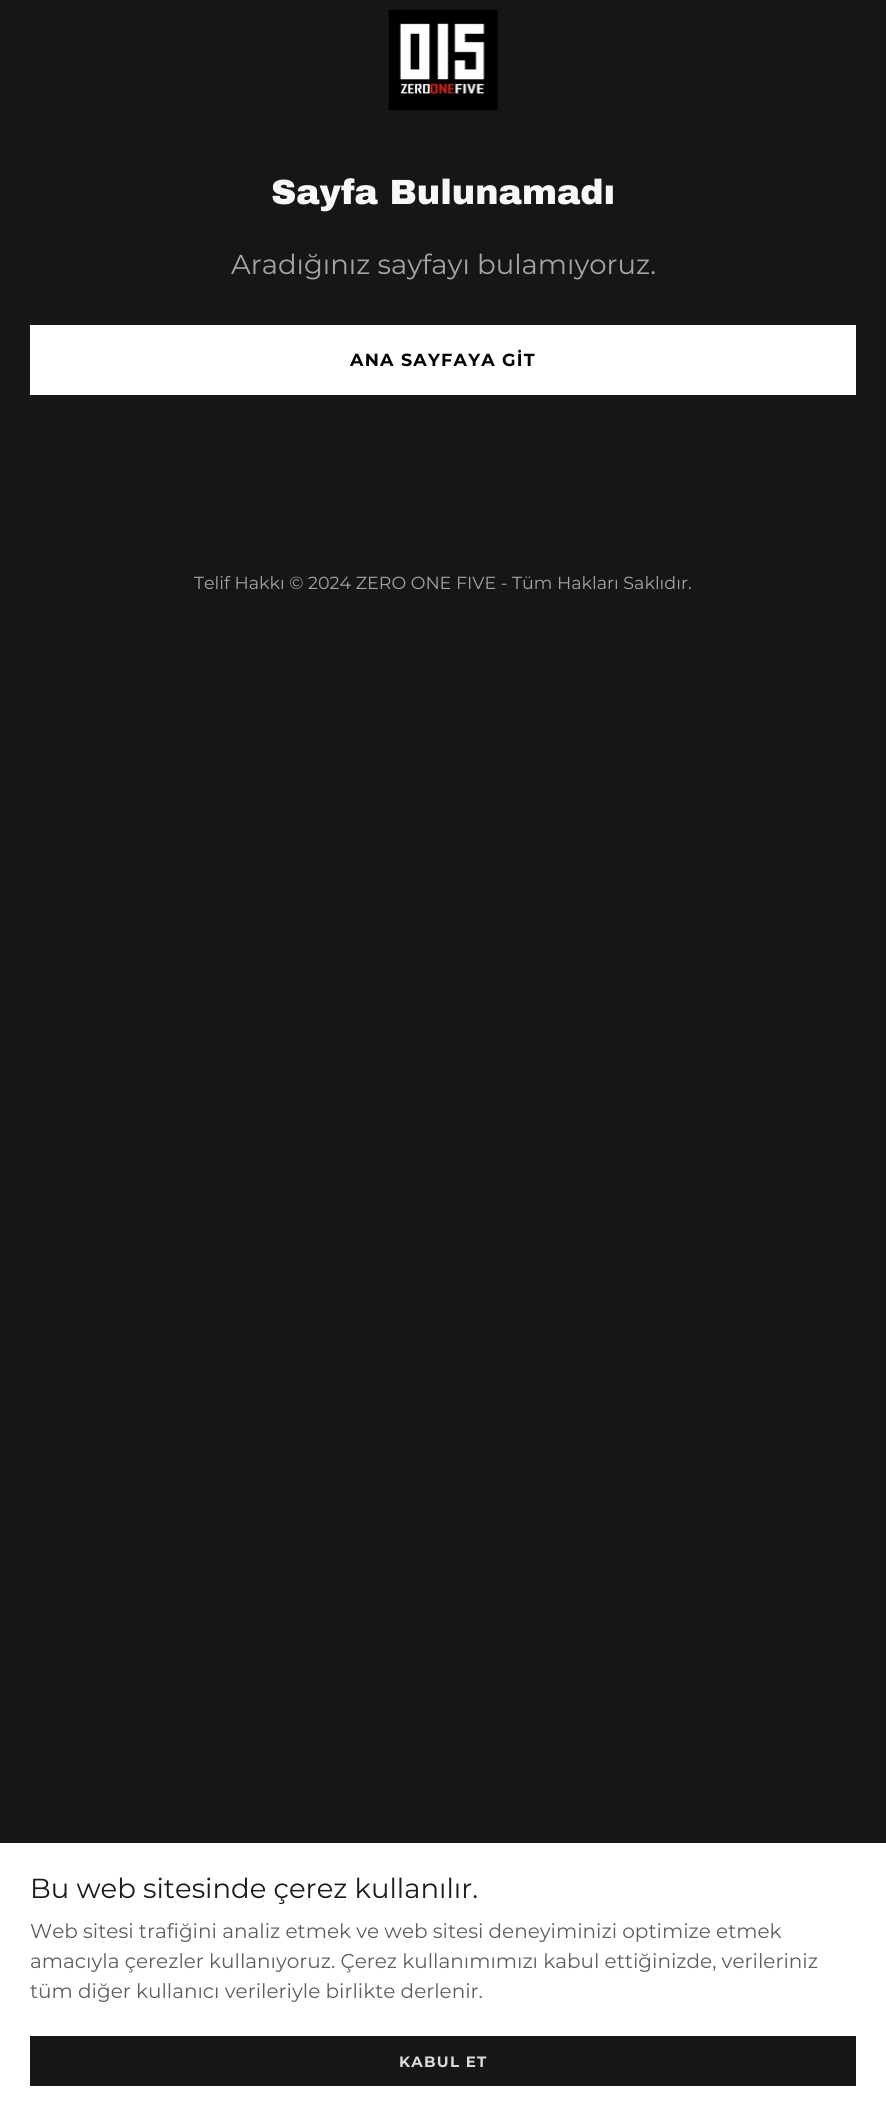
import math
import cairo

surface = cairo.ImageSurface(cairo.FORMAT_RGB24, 886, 2121)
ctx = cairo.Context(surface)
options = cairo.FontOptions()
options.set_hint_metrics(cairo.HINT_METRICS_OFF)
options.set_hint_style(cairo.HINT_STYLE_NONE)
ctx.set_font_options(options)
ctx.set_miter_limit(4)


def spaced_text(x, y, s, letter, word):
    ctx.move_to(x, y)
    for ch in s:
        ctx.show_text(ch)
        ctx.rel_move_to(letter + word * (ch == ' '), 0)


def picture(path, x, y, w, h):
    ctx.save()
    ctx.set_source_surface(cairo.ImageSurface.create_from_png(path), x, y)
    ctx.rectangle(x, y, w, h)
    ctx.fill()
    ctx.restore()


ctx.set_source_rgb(0.086, 0.086, 0.086)
ctx.paint()
picture("img1.png", 388, 10, 110, 100)
ctx.select_font_face("Archivo Black Black")
ctx.set_font_size(35)
ctx.set_source_rgb(0.969, 0.969, 0.969)
ctx.move_to(271, 204)
ctx.show_text("Sayfa Bulunamadı")
ctx.select_font_face("Montserrat")
ctx.set_font_size(27.5)
ctx.set_source_rgb(0.643, 0.643, 0.643)
ctx.move_to(231, 274)
ctx.show_text("Aradığınız sayfayı bulamıyoruz.")
ctx.set_source_rgb(1, 1, 1)
ctx.rectangle(30, 325, 826, 70)
ctx.fill()
ctx.select_font_face("Montserrat", cairo.FONT_SLANT_NORMAL, cairo.FONT_WEIGHT_BOLD)
ctx.set_font_size(17.5)
ctx.set_source_rgb(0, 0, 0)
spaced_text(350, 366, "ANA SAYFAYA GİT", 1.25, 0)
ctx.select_font_face("Montserrat")
ctx.set_source_rgb(0.643, 0.643, 0.643)
ctx.move_to(194, 589)
ctx.show_text("Telif Hakkı © 2024 ZERO ONE FIVE - Tüm Hakları Saklıdır.")
ctx.set_source_rgb(1, 1, 1)
ctx.rectangle(0, 1843, 886, 278)
ctx.fill()
ctx.set_font_size(27.5)
ctx.set_source_rgb(0.106, 0.106, 0.106)
ctx.move_to(30, 1898)
ctx.show_text("Bu web sitesinde çerez kullanılır.")
ctx.set_font_size(20)
ctx.set_source_rgb(0.369, 0.369, 0.369)
ctx.move_to(30, 1938)
ctx.show_text("Web sitesi trafiğini analiz etmek ve web sitesi deneyiminizi optimize etmek")
ctx.move_to(30, 1968)
ctx.show_text("amacıyla çerezler kullanıyoruz. Çerez kullanımımızı kabul ettiğinizde, verileriniz")
ctx.move_to(30, 1998)
ctx.show_text("tüm diğer kullanıcı verileriyle birlikte derlenir.")
ctx.set_source_rgb(0.086, 0.086, 0.086)
ctx.rectangle(30, 2036, 826, 50)
ctx.fill()
ctx.select_font_face("Montserrat", cairo.FONT_SLANT_NORMAL, cairo.FONT_WEIGHT_BOLD)
ctx.set_font_size(15)
ctx.set_source_rgb(0.859, 0.859, 0.859)
spaced_text(399, 2067, "KABUL ET", 1.25, 0)
surface.write_to_png("page.png")
